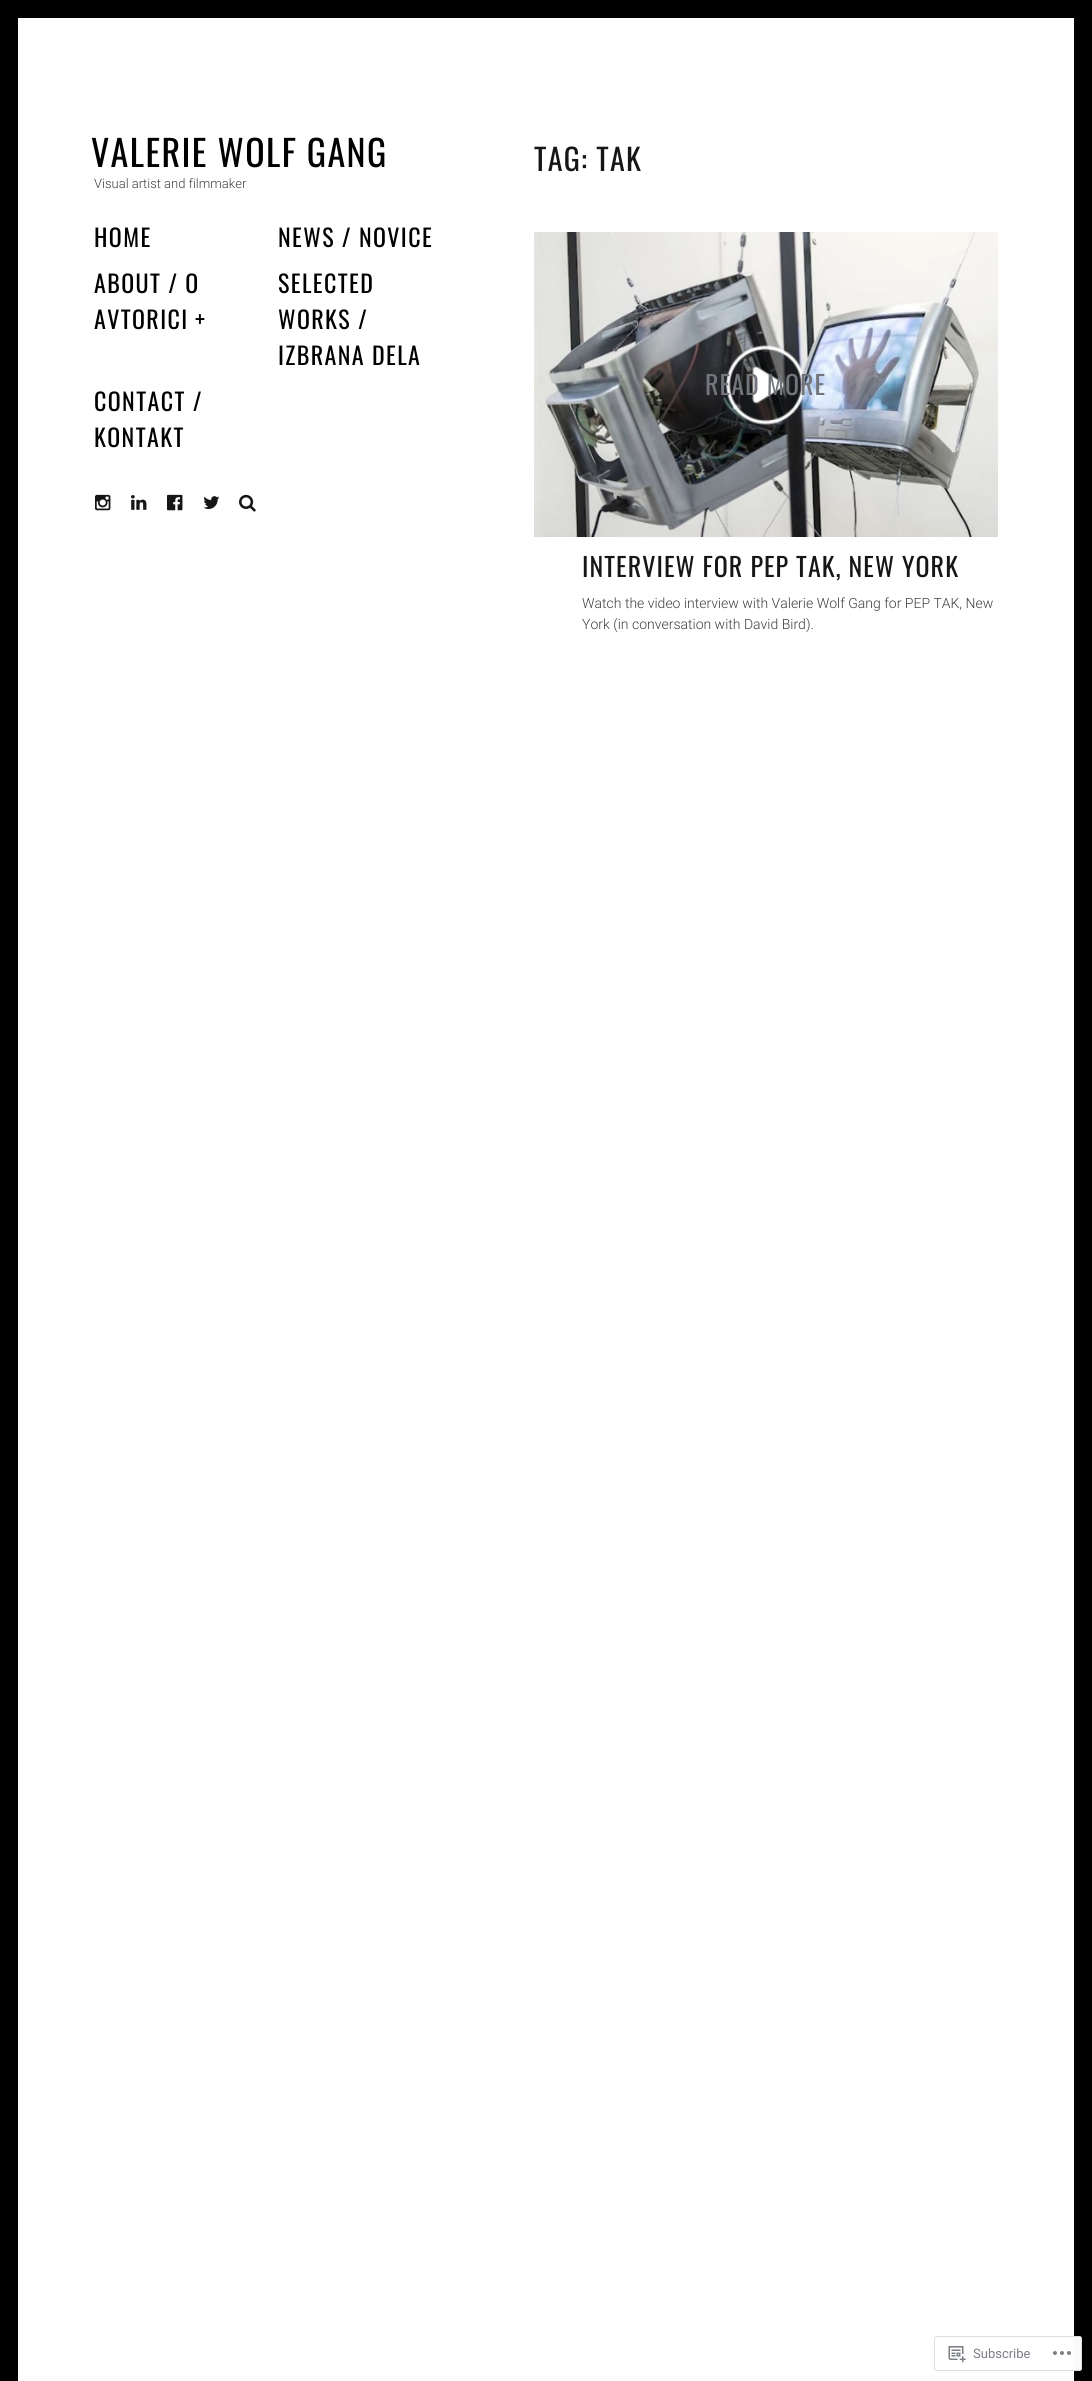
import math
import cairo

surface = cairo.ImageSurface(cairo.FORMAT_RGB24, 1092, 2381)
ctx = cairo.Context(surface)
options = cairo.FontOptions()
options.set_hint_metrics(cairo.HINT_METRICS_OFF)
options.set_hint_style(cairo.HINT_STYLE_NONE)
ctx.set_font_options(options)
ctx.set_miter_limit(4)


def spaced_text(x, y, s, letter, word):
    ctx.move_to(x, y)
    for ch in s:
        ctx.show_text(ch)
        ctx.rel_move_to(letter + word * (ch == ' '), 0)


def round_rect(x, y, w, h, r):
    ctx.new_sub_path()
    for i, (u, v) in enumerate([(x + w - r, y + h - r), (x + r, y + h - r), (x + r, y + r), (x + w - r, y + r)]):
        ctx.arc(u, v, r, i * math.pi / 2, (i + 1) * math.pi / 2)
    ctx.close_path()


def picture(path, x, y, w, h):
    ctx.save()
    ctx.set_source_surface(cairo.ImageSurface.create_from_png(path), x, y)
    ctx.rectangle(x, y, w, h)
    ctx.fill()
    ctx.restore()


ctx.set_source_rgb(1, 1, 1)
ctx.paint()
ctx.set_source_rgb(0, 0, 0)
ctx.rectangle(18, 0, 1056, 18)
ctx.fill()
ctx.rectangle(1074, 0, 18, 2381)
ctx.fill()
ctx.rectangle(0, 0, 18, 2381)
ctx.fill()
ctx.select_font_face("Oswald")
ctx.set_font_size(36)
spaced_text(91, 167, "VALERIE WOLF GANG", 1.4, 0)
ctx.select_font_face("Roboto Light")
ctx.set_font_size(13)
ctx.set_source_rgb(0.243, 0.247, 0.251)
ctx.move_to(94, 188)
ctx.show_text("Visual artist and filmmaker")
ctx.select_font_face("Oswald")
ctx.set_font_size(24)
ctx.set_source_rgb(0, 0, 0)
spaced_text(94, 247, "HOME", 1.4, 0)
spaced_text(278, 247, "NEWS / NOVICE", 1.4, 0)
spaced_text(94, 293, "ABOUT / O", 1.4, 0)
spaced_text(94, 329, "AVTORICI", 1.4, 0)
spaced_text(195, 329, "+", 1.4, 0)
spaced_text(278, 293, "SELECTED", 1.4, 0)
spaced_text(278, 329, "WORKS /", 1.4, 0)
spaced_text(278, 365, "IZBRANA DELA", 1.4, 0)
spaced_text(94, 411, "CONTACT /", 1.4, 0)
spaced_text(94, 447, "KONTAKT", 1.4, 0)
picture("img1.png", 95, 494, 16, 17)
picture("img2.png", 131, 495, 16, 15)
picture("img3.png", 167, 494, 16, 17)
picture("img4.png", 203, 496, 17, 13)
picture("img5.png", 239, 494, 17, 18)
ctx.set_font_size(30)
ctx.set_source_rgb(0.09, 0.086, 0.09)
spaced_text(534, 171, "TAG: TAK", 1.25, 0)
picture("img6.png", 534, 232, 464, 305)
ctx.set_font_size(26)
ctx.set_source_rgb(0.447, 0.463, 0.486)
spaced_text(705, 395, "READ MORE", 1.05, 0)
ctx.set_source_rgb(0.09, 0.086, 0.09)
spaced_text(582, 577, "INTERVIEW FOR PEP TAK, NEW YORK", 1.05, 0)
ctx.select_font_face("Roboto Light")
ctx.set_font_size(14)
ctx.set_source_rgb(0.243, 0.247, 0.251)
ctx.move_to(582, 608)
ctx.show_text("Watch the video interview with Valerie Wolf Gang for PEP TAK, New")
ctx.move_to(582, 629)
ctx.show_text("York (in conversation with David Bird).")
ctx.set_source_rgba(1, 1, 1, 0.98)
round_rect(934, 2336, 148, 35, 3)
ctx.fill()
round_rect(934.5, 2336.5, 147, 34, 2.5)
ctx.set_source_rgba(0.863, 0.863, 0.871, 0.98)
ctx.set_line_width(1)
ctx.stroke()
picture("img7.png", 948, 2346, 18, 17)
ctx.select_font_face("Roboto")
ctx.set_font_size(13)
ctx.set_source_rgb(0.482, 0.498, 0.522)
ctx.move_to(973, 2358)
ctx.show_text("Subscribe")
picture("img8.png", 1053, 2351, 18, 4)
surface.write_to_png("page.png")
